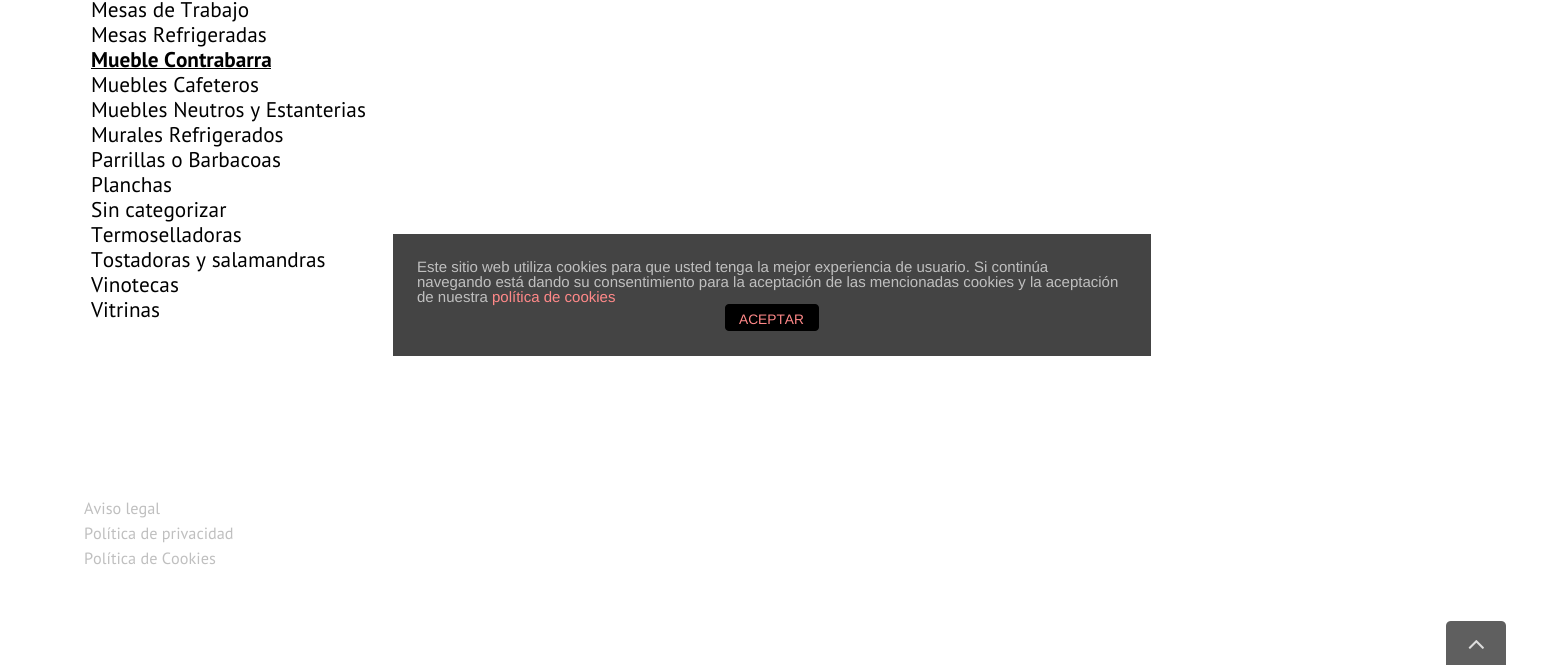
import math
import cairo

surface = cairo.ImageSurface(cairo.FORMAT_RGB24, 1543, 665)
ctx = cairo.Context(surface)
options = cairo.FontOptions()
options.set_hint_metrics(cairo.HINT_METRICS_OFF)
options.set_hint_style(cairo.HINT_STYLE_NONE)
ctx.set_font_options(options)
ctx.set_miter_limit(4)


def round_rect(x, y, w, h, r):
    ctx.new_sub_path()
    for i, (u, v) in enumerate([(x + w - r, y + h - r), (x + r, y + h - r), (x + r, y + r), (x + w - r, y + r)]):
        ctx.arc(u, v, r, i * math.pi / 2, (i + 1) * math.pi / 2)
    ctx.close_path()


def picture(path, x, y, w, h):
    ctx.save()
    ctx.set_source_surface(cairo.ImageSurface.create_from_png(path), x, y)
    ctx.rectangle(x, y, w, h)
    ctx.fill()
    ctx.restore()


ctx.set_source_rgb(1, 1, 1)
ctx.paint()
ctx.select_font_face("PT Sans")
ctx.set_font_size(21.25)
ctx.set_source_rgb(0, 0, 0)
ctx.move_to(91, 17)
ctx.show_text("Mesas de Trabajo")
ctx.move_to(91, 42)
ctx.show_text("Mesas Refrigeradas")
ctx.select_font_face("PT Sans", cairo.FONT_SLANT_NORMAL, cairo.FONT_WEIGHT_BOLD)
ctx.move_to(91, 67)
ctx.show_text("Mueble Contrabarra")
ctx.rectangle(91, 68, 180, 1)
ctx.fill()
ctx.select_font_face("PT Sans")
ctx.move_to(91, 92)
ctx.show_text("Muebles Cafeteros")
ctx.move_to(91, 117)
ctx.show_text("Muebles Neutros y Estanterias")
ctx.move_to(91, 142)
ctx.show_text("Murales Refrigerados")
ctx.move_to(91, 167)
ctx.show_text("Parrillas o Barbacoas")
ctx.move_to(91, 192)
ctx.show_text("Planchas")
ctx.move_to(91, 217)
ctx.show_text("Sin categorizar")
ctx.move_to(91, 242)
ctx.show_text("Termoselladoras")
ctx.move_to(91, 267)
ctx.show_text("Tostadoras y salamandras")
ctx.move_to(91, 292)
ctx.show_text("Vinotecas")
ctx.move_to(91, 317)
ctx.show_text("Vitrinas")
ctx.set_font_size(16.25)
ctx.set_source_rgb(0.749, 0.749, 0.749)
ctx.move_to(84, 514)
ctx.show_text("Aviso legal")
ctx.move_to(84, 539)
ctx.show_text("Política de privacidad")
ctx.move_to(84, 564)
ctx.show_text("Política de Cookies")
ctx.set_source_rgb(0.267, 0.267, 0.267)
ctx.rectangle(393, 234, 758, 122)
ctx.fill()
ctx.select_font_face("Liberation Sans")
ctx.set_font_size(15)
ctx.set_source_rgb(0.749, 0.749, 0.749)
ctx.move_to(417, 272)
ctx.show_text("Este sitio web utiliza cookies para que usted tenga la mejor experiencia de usuario. Si continúa")
ctx.move_to(417, 287)
ctx.show_text("navegando está dando su consentimiento para la aceptación de las mencionadas cookies y la aceptación")
ctx.move_to(417, 302)
ctx.show_text("de nuestra")
ctx.set_source_rgb(1, 0.533, 0.533)
ctx.move_to(492, 302)
ctx.show_text("política de cookies")
ctx.set_source_rgb(0, 0, 0)
round_rect(725, 304, 94, 27, 4)
ctx.fill()
ctx.set_font_size(13.75)
ctx.set_source_rgb(1, 0.533, 0.533)
ctx.move_to(739, 324)
ctx.show_text("ACEPTAR")
ctx.set_source_rgb(0.373, 0.373, 0.373)
ctx.new_path()
ctx.move_to(1451, 621)
ctx.line_to(1501, 621)
ctx.curve_to(1504, 621, 1506, 623, 1506, 626)
ctx.line_to(1506, 665)
ctx.line_to(1446, 665)
ctx.line_to(1446, 626)
ctx.curve_to(1446, 623, 1448, 621, 1451, 621)
ctx.close_path()
ctx.fill()
picture("img1.png", 1468, 640, 16, 9)
surface.write_to_png("page.png")
